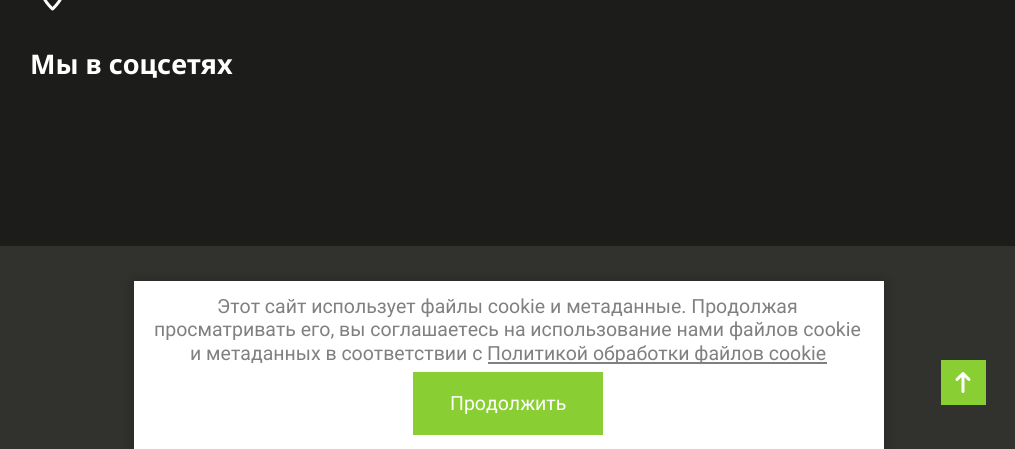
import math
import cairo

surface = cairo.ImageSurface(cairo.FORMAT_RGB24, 1015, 449)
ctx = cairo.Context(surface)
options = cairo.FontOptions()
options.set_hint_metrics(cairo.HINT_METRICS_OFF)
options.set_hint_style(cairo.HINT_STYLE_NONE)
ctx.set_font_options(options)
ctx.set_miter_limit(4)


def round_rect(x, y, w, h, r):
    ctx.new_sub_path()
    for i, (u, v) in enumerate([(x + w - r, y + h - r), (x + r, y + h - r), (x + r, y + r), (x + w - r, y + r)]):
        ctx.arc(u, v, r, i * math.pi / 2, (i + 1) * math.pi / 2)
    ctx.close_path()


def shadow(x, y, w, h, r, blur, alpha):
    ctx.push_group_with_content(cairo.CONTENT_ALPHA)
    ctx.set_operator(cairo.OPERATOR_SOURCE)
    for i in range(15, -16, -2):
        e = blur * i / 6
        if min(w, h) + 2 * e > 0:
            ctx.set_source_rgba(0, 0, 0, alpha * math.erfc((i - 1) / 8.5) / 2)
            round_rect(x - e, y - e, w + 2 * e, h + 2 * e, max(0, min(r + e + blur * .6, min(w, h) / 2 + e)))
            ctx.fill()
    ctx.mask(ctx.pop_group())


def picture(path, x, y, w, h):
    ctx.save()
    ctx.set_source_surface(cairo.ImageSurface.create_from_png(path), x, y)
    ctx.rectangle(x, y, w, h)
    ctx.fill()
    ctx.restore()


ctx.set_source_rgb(0.192, 0.196, 0.18)
ctx.paint()
ctx.set_source_rgb(0.11, 0.114, 0.102)
ctx.rectangle(0, 0, 1015, 246)
ctx.fill()
picture("img1.png", 43, 0, 19, 11)
ctx.select_font_face("Noto Sans", cairo.FONT_SLANT_NORMAL, cairo.FONT_WEIGHT_BOLD)
ctx.set_font_size(27)
ctx.set_source_rgb(1, 1, 1)
ctx.move_to(30, 74)
ctx.show_text("Мы в соцсетях")
ctx.set_source_rgb(0, 0, 0)
shadow(134, 282, 750, 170, 0, 7.5, 0.23)
ctx.set_source_rgb(1, 1, 1)
ctx.rectangle(134, 281, 750, 168)
ctx.fill()
ctx.select_font_face("Roboto")
ctx.set_font_size(19.5)
ctx.set_source_rgb(0.502, 0.502, 0.502)
ctx.move_to(217, 313)
ctx.show_text("Этот сайт использует файлы cookie и метаданные. Продолжая")
ctx.move_to(154, 336)
ctx.show_text("просматривать его, вы соглашаетесь на использование нами файлов cookie")
ctx.move_to(190, 360)
ctx.show_text("и метаданных в соответствии с")
ctx.rectangle(488, 362, 339, 2)
ctx.fill()
ctx.move_to(487, 360)
ctx.show_text("Политикой обработки файлов cookie")
ctx.set_source_rgb(0.537, 0.808, 0.196)
ctx.rectangle(413, 372, 190, 63)
ctx.fill()
ctx.set_source_rgb(1, 1, 1)
ctx.move_to(450, 410)
ctx.show_text("Продолжить")
ctx.set_source_rgb(0.537, 0.808, 0.196)
ctx.rectangle(941, 360, 45, 45)
ctx.fill()
picture("img2.png", 955, 372, 16, 21)
surface.write_to_png("page.png")
